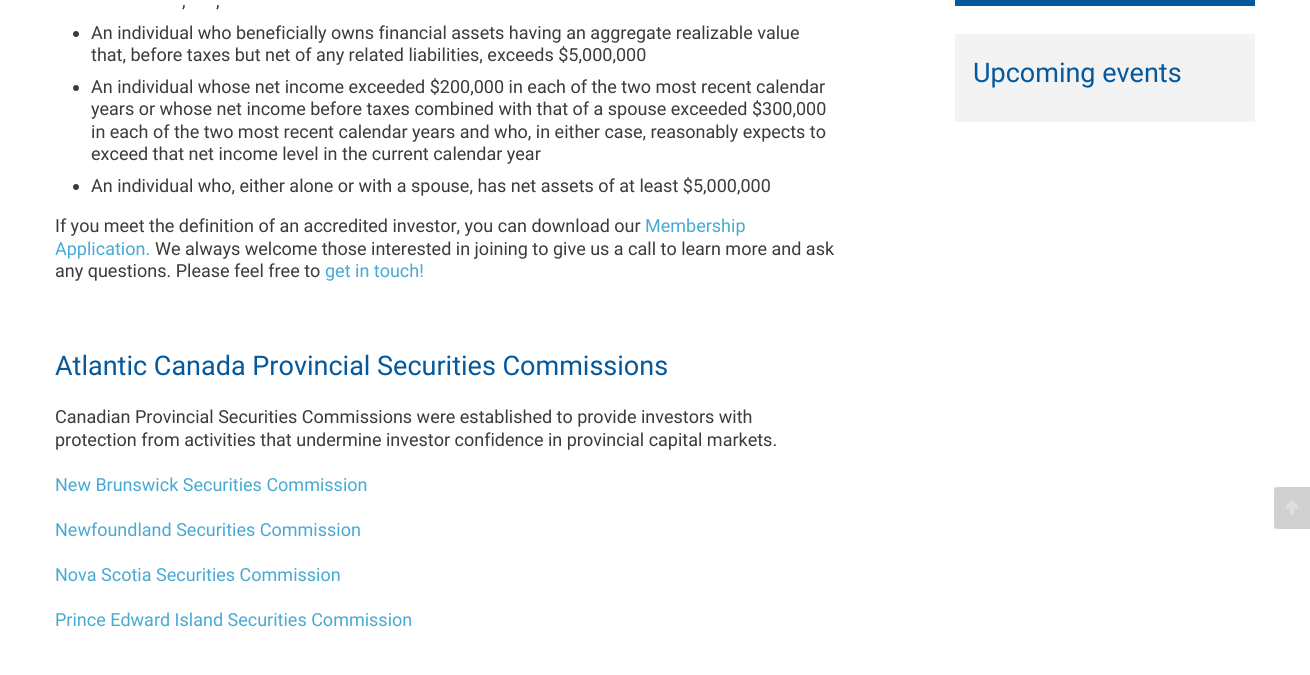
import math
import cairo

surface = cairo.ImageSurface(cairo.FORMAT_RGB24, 1310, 675)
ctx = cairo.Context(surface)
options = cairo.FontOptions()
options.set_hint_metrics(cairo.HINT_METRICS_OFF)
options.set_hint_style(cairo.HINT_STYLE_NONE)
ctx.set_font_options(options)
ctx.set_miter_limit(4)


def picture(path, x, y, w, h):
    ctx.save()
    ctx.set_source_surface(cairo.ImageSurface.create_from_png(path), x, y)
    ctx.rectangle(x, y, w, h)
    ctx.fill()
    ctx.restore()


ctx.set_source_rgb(1, 1, 1)
ctx.paint()
ctx.select_font_face("Roboto")
ctx.set_font_size(18)
ctx.set_source_rgb(0.231, 0.231, 0.231)
ctx.move_to(182, 7)
ctx.show_text(",")
ctx.move_to(216, 7)
ctx.show_text(",")
ctx.new_path()
ctx.arc(76, 34, 3, 0, 2 * math.pi)
ctx.fill()
ctx.move_to(91, 39)
ctx.show_text("An individual who beneficially owns financial assets having an aggregate realizable value")
ctx.move_to(91, 61)
ctx.show_text("that, before taxes but net of any related liabilities, exceeds $5,000,000")
ctx.new_path()
ctx.arc(76, 88, 3, 0, 2 * math.pi)
ctx.fill()
ctx.move_to(91, 93)
ctx.show_text("An individual whose net income exceeded $200,000 in each of the two most recent calendar")
ctx.move_to(91, 115)
ctx.show_text("years or whose net income before taxes combined with that of a spouse exceeded $300,000")
ctx.move_to(91, 138)
ctx.show_text("in each of the two most recent calendar years and who, in either case, reasonably expects to")
ctx.move_to(91, 160)
ctx.show_text("exceed that net income level in the current calendar year")
ctx.new_path()
ctx.arc(76, 187, 3, 0, 2 * math.pi)
ctx.fill()
ctx.move_to(91, 192)
ctx.show_text("An individual who, either alone or with a spouse, has net assets of at least $5,000,000")
ctx.move_to(55, 232)
ctx.show_text("If you meet the definition of an accredited investor, you can download our")
ctx.set_source_rgb(0.278, 0.667, 0.827)
ctx.move_to(645, 232)
ctx.show_text("Membership")
ctx.move_to(55, 255)
ctx.show_text("Application.")
ctx.set_source_rgb(0.231, 0.231, 0.231)
ctx.move_to(155, 255)
ctx.show_text("We always welcome those interested in joining to give us a call to learn more and ask")
ctx.move_to(55, 277)
ctx.show_text("any questions. Please feel free to")
ctx.set_source_rgb(0.278, 0.667, 0.827)
ctx.move_to(325, 277)
ctx.show_text("get in touch!")
ctx.set_font_size(27)
ctx.set_source_rgb(0.016, 0.345, 0.612)
ctx.move_to(55, 375)
ctx.show_text("Atlantic Canada Provincial Securities Commissions")
ctx.set_font_size(18)
ctx.set_source_rgb(0.231, 0.231, 0.231)
ctx.move_to(55, 423)
ctx.show_text("Canadian Provincial Securities Commissions were established to provide investors with")
ctx.move_to(55, 446)
ctx.show_text("protection from activities that undermine investor confidence in provincial capital markets.")
ctx.set_source_rgb(0.278, 0.667, 0.827)
ctx.move_to(55, 491)
ctx.show_text("New Brunswick Securities Commission")
ctx.move_to(55, 536)
ctx.show_text("Newfoundland Securities Commission")
ctx.move_to(55, 581)
ctx.show_text("Nova Scotia Securities Commission")
ctx.move_to(55, 626)
ctx.show_text("Prince Edward Island Securities Commission")
ctx.set_source_rgb(0.016, 0.345, 0.612)
ctx.rectangle(955, 0, 300, 6)
ctx.fill()
ctx.set_source_rgb(0.953, 0.953, 0.953)
ctx.rectangle(955, 34, 300, 88)
ctx.fill()
ctx.set_font_size(27)
ctx.set_source_rgb(0.016, 0.345, 0.612)
ctx.move_to(973, 82)
ctx.show_text("Upcoming events")
ctx.set_source_rgb(0.82, 0.82, 0.82)
ctx.new_path()
ctx.move_to(1277, 485)
ctx.line_to(1310, 485)
ctx.line_to(1310, 531)
ctx.line_to(1277, 531)
ctx.curve_to(1274, 531, 1272, 529, 1272, 526)
ctx.line_to(1272, 490)
ctx.curve_to(1272, 487, 1274, 485, 1277, 485)
ctx.close_path()
ctx.fill()
picture("img1.png", 1286, 500, 12, 16)
ctx.set_source_rgb(1, 1, 1)
ctx.set_fill_rule(cairo.FILL_RULE_EVEN_ODD)
ctx.new_path()
ctx.move_to(1277, 485)
ctx.line_to(1310, 485)
ctx.line_to(1310, 531)
ctx.line_to(1277, 531)
ctx.curve_to(1274, 531, 1272, 529, 1272, 526)
ctx.line_to(1272, 490)
ctx.curve_to(1272, 487, 1274, 485, 1277, 485)
ctx.close_path()
ctx.move_to(1277, 487)
ctx.line_to(1310, 487)
ctx.line_to(1310, 529)
ctx.line_to(1277, 529)
ctx.curve_to(1275, 529, 1274, 528, 1274, 526)
ctx.line_to(1274, 490)
ctx.curve_to(1274, 488, 1275, 487, 1277, 487)
ctx.close_path()
ctx.fill()
surface.write_to_png("page.png")
